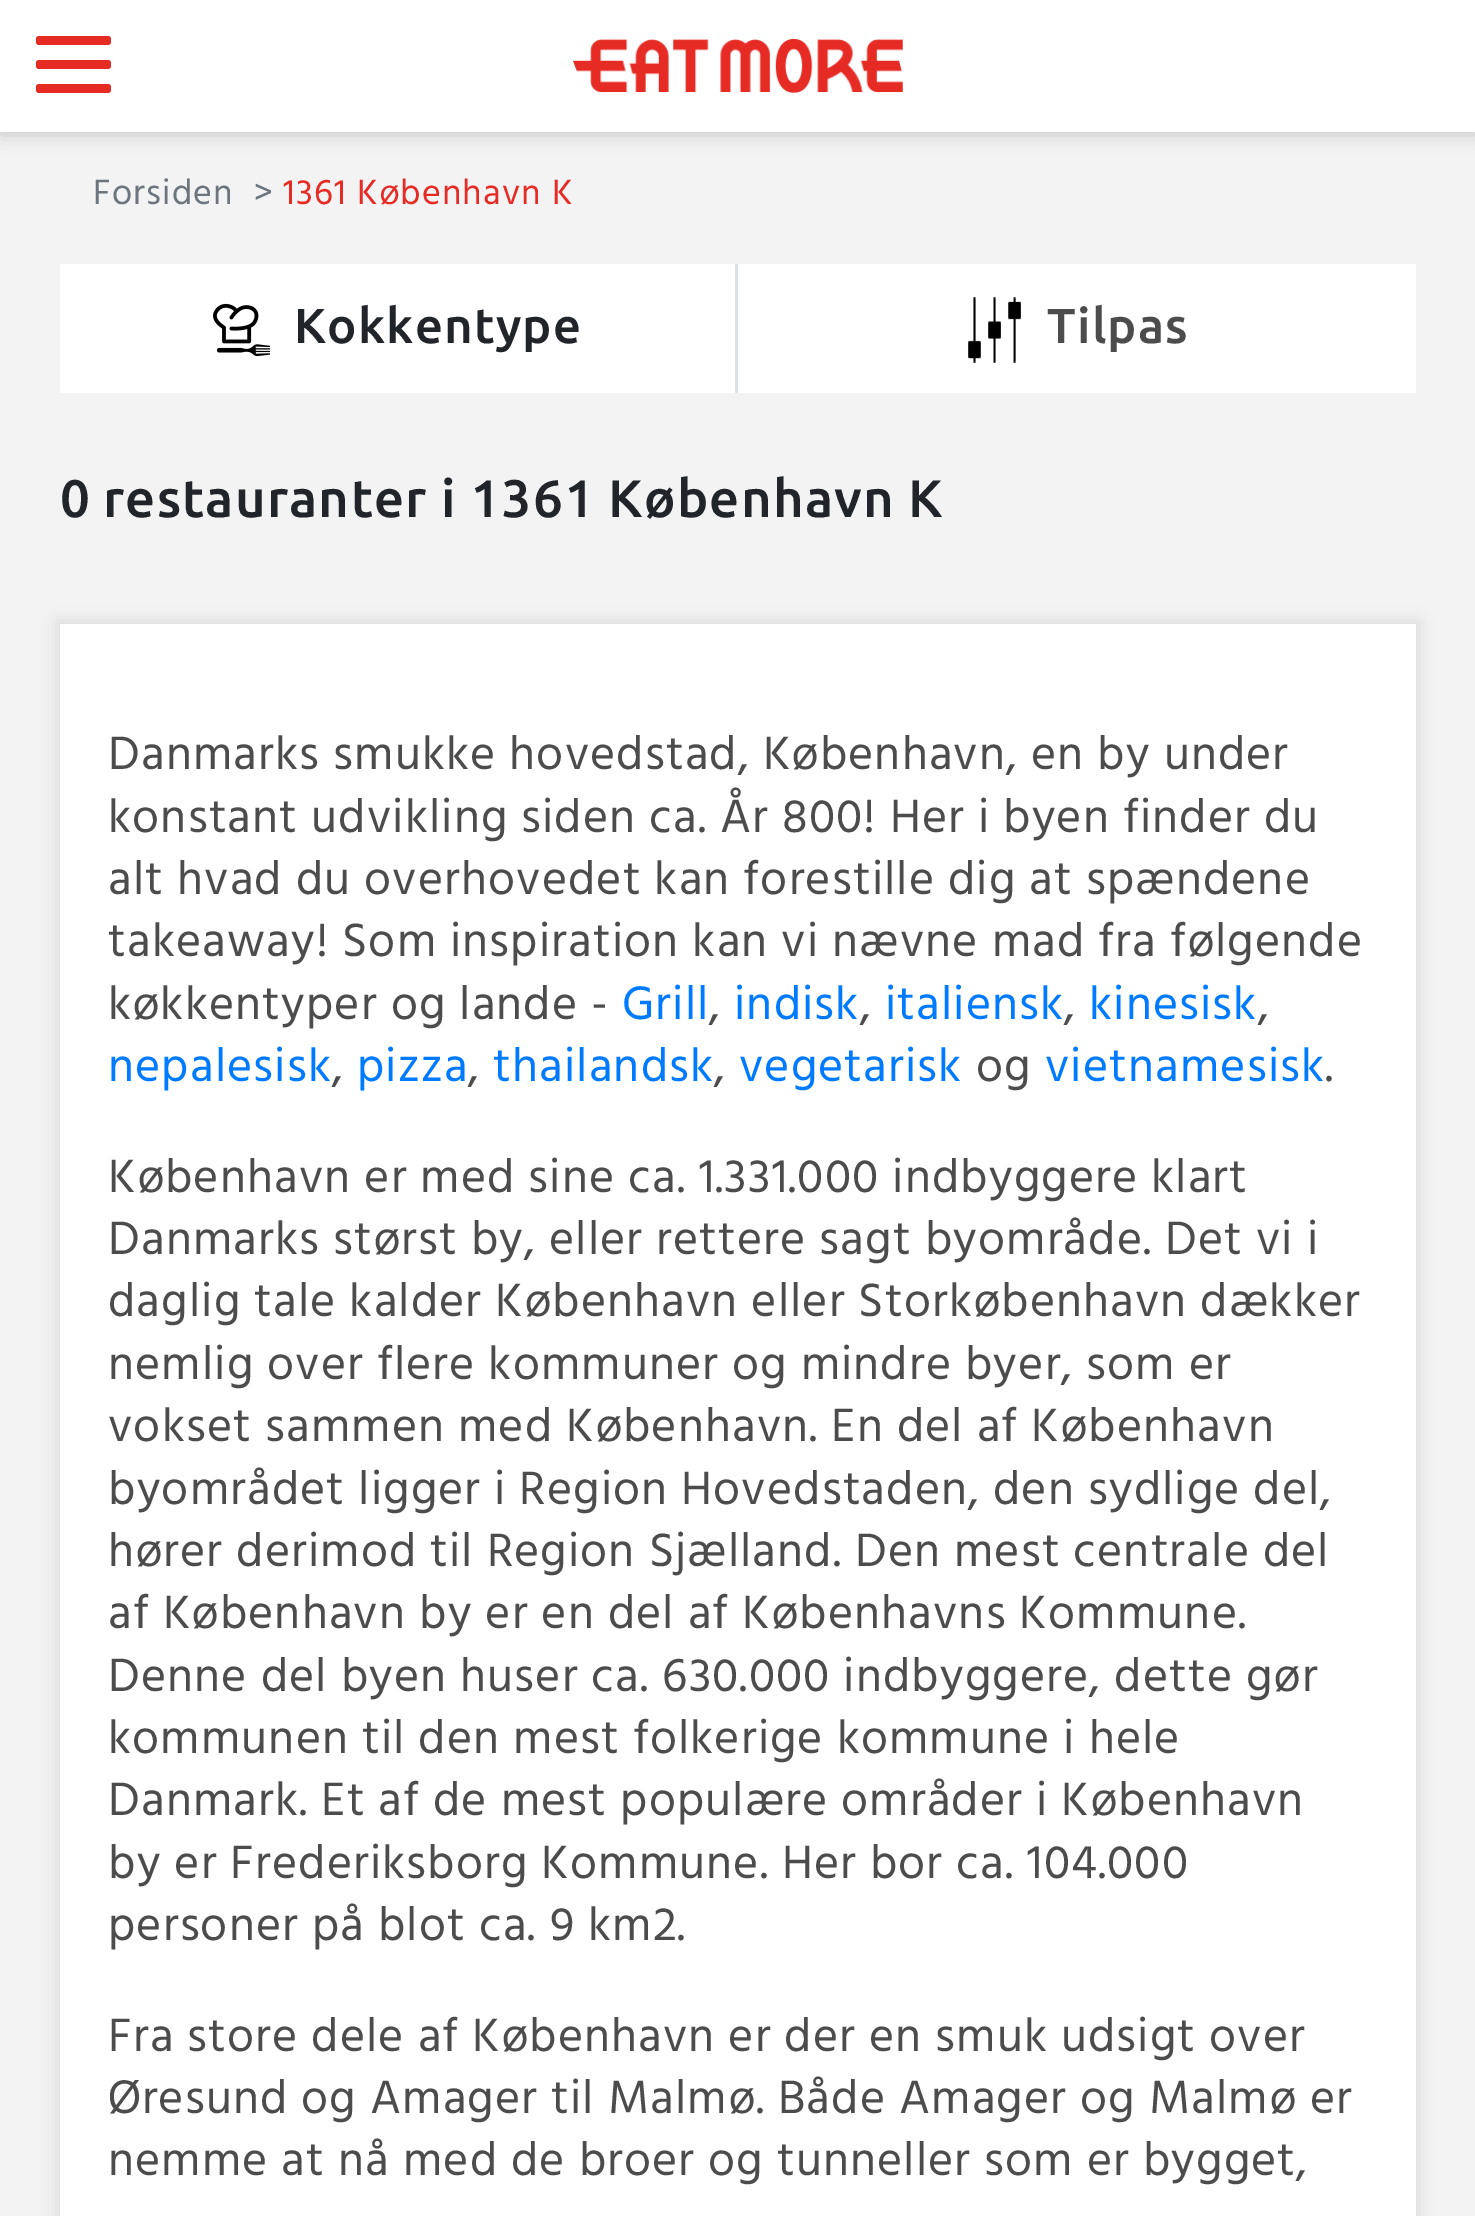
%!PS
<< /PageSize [1475 2216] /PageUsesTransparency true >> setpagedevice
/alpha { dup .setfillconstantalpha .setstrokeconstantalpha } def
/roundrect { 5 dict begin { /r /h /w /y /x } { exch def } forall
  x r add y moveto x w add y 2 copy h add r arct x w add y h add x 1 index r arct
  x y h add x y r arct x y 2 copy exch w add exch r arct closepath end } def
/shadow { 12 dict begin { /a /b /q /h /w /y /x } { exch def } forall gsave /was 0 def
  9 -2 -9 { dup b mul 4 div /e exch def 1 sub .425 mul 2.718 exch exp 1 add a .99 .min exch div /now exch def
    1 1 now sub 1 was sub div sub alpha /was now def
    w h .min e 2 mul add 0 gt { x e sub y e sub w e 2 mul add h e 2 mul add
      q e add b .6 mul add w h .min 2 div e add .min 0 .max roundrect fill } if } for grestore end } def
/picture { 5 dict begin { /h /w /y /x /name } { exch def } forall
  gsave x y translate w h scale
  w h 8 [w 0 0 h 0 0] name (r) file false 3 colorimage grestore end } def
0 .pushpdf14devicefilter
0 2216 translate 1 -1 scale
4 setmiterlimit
0.953 setgray
0 0 1475 2216 rectfill
0.78 setgray
0 3 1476 132 0 9 1 shadow
1 setgray
0 0 1475 132 rectfill
0.902 0.169 0.145 setrgbcolor
36 36 75 9 3 roundrect fill
36 60 75 9 3 roundrect fill
36 84 75 9 3 roundrect fill
(img1.rgb) 573 39 330 54 picture
/HindVadodara-Regular [36 0 0 -36 0 0] selectfont
0.424 0.459 0.49 setrgbcolor
93 204 moveto 1.2 0 (Forsiden) ashow
254 204 moveto 1.2 0 (>) ashow
0.902 0.169 0.145 setrgbcolor
283 204 moveto 1.2 0 (1361 København K) ashow
1 setgray
60 264 675 129 rectfill
0.871 0.886 0.902 setrgbcolor
735 264 3 129 rectfill
(img2.rgb) 213 303 57 54 picture
/Ubuntu-Medium [49.25 0 0 -49.25 0 0] selectfont
0.129 0.145 0.161 setrgbcolor
294 343 moveto 1.2 0 (Kokkentype) ashow
1 setgray
738 264 678 129 rectfill
(img3.rgb) 968 297 53 66 picture
0.298 setgray
1047 343 moveto 1.2 0 (Tilpas) ashow
/Ubuntu-Medium [52.75 0 0 -52.75 0 0] selectfont
0.129 0.145 0.161 setrgbcolor
60 517 moveto 1.2 0 (0) ashow
103 517 moveto 1.2 0 (restauranter i 1361 København K) ashow
0.847 setgray
57 621 1362 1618 0 7.5 1 shadow
1 setgray
60 624 1356 1592 rectfill
/HindVadodara-Regular [48 0 0 -48 0 0] selectfont
0.298 setgray
108 769 moveto 1.2 0 (Danmarks smukke hovedstad, København, en by under) ashow
108 832 moveto 1.2 0 (konstant udvikling siden ca. År 800! Her i byen finder du) ashow
108 894 moveto 1.2 0 (alt hvad du overhovedet kan forestille dig at spændene) ashow
108 956 moveto 1.2 0 (takeaway! Som inspiration kan vi nævne mad fra følgende) ashow
108 1019 moveto 1.2 0 (køkkentyper og lande -) ashow
0 0.482 1 setrgbcolor
622 1019 moveto 1.2 0 (Grill) ashow
0.298 setgray
709 1019 moveto 1.2 0 (,) ashow
0 0.482 1 setrgbcolor
734 1019 moveto 1.2 0 (indisk) ashow
0.298 setgray
860 1019 moveto 1.2 0 (,) ashow
0 0.482 1 setrgbcolor
885 1019 moveto 1.2 0 (italiensk) ashow
0.298 setgray
1064 1019 moveto 1.2 0 (,) ashow
0 0.482 1 setrgbcolor
1089 1019 moveto 1.2 0 (kinesisk) ashow
0.298 setgray
1258 1019 moveto 1.2 0 (,) ashow
0 0.482 1 setrgbcolor
108 1081 moveto 1.2 0 (nepalesisk) ashow
0.298 setgray
332 1081 moveto 1.2 0 (,) ashow
0 0.482 1 setrgbcolor
357 1081 moveto 1.2 0 (pizza) ashow
0.298 setgray
468 1081 moveto 1.2 0 (,) ashow
0 0.482 1 setrgbcolor
493 1081 moveto 1.2 0 (thailandsk) ashow
0.298 setgray
714 1081 moveto 1.2 0 (,) ashow
0 0.482 1 setrgbcolor
739 1081 moveto 1.2 0 (vegetarisk) ashow
0.298 setgray
976 1081 moveto 1.2 0 (og) ashow
0 0.482 1 setrgbcolor
1045 1081 moveto 1.2 0 (vietnamesisk) ashow
0.298 setgray
1325 1081 moveto 1.2 0 (.) ashow
108 1192 moveto 1.2 0 (København er med sine ca. 1.331.000 indbyggere klart) ashow
108 1254 moveto 1.2 0 (Danmarks størst by, eller rettere sagt byområde. Det vi i) ashow
108 1316 moveto 1.2 0 (daglig tale kalder København eller Storkøbenhavn dækker) ashow
108 1379 moveto 1.2 0 (nemlig over flere kommuner og mindre byer, som er) ashow
108 1441 moveto 1.2 0 (vokset sammen med København. En del af København) ashow
108 1504 moveto 1.2 0 (byområdet ligger i Region Hovedstaden, den sydlige del,) ashow
108 1566 moveto 1.2 0 (hører derimod til Region Sjælland. Den mest centrale del) ashow
108 1628 moveto 1.2 0 (af København by er en del af Københavns Kommune.) ashow
108 1691 moveto 1.2 0 (Denne del byen huser ca. 630.000 indbyggere, dette gør) ashow
108 1753 moveto 1.2 0 (kommunen til den mest folkerige kommune i hele) ashow
108 1815 moveto 1.2 0 (Danmark. Et af de mest populære områder i København) ashow
108 1878 moveto 1.2 0 (by er Frederiksborg Kommune. Her bor ca. 104.000) ashow
108 1940 moveto 1.2 0 (personer på blot ca. 9 km2.) ashow
108 2051 moveto 1.2 0 (Fra store dele af København er der en smuk udsigt over) ashow
108 2113 moveto 1.2 0 (Øresund og Amager til Malmø. Både Amager og Malmø er) ashow
108 2175 moveto 1.2 0 (nemme at nå med de broer og tunneller som er bygget,) ashow
.poppdf14devicefilter showpage
